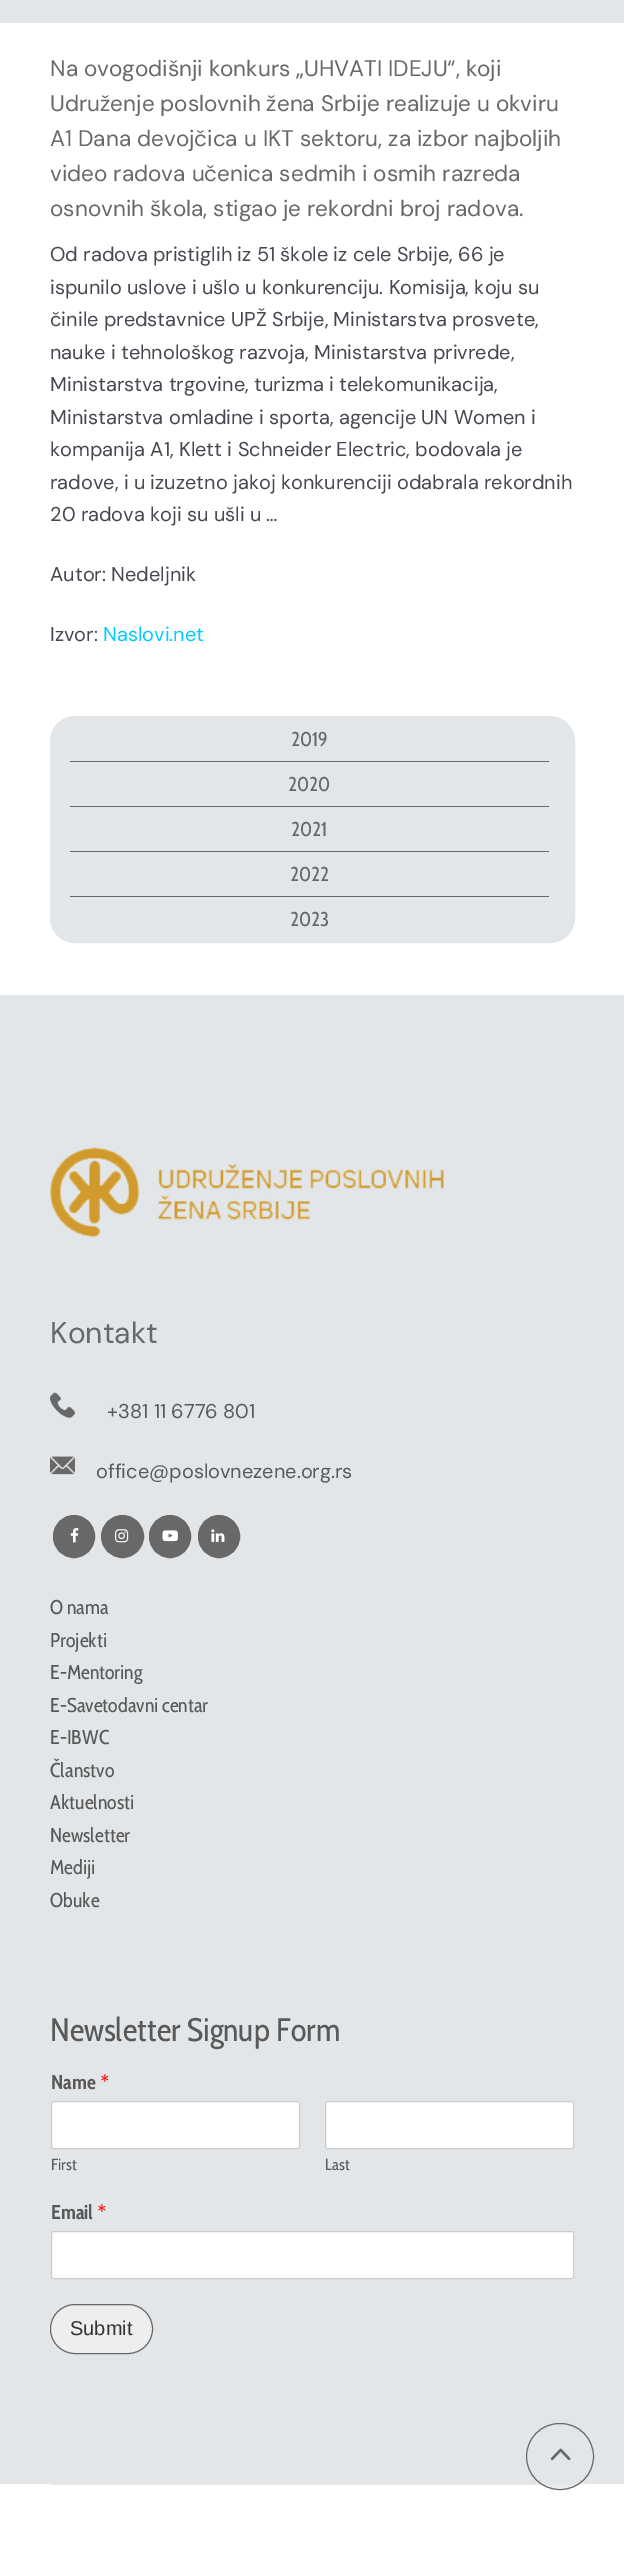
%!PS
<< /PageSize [624 2571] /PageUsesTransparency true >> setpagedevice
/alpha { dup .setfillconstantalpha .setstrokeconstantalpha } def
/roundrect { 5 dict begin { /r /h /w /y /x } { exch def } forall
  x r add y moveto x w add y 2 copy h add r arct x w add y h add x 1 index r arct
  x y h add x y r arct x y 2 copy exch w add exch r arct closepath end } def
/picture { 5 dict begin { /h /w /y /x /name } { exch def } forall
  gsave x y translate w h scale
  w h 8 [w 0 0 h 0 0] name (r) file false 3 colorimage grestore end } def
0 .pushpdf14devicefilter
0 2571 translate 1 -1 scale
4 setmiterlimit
1 setgray
0 0 624 2571 rectfill
0.89 0.902 0.91 setrgbcolor
0 0 624 23 rectfill
/DMSans-Regular [22.5 0 0 -22.5 0 0] selectfont
0.408 0.408 0.412 setrgbcolor
50 76 moveto (Na ovogodišnji konkurs „UHVATI IDEJU“, koji) show
50 111 moveto (Udruženje poslovnih žena Srbije realizuje u okviru) show
50 146 moveto (A1 Dana devojčica u IKT sektoru, za izbor najboljih) show
50 181 moveto (video radova učenica sedmih i osmih razreda) show
50 216 moveto (osnovnih škola, stigao je rekordni broj radova.) show
/DMSans-Regular [20 0 0 -20 0 0] selectfont
0.278 0.278 0.318 setrgbcolor
50 261 moveto (Od radova pristiglih iz 51 škole iz cele Srbije, 66 je) show
50 294 moveto (ispunilo uslove i ušlo u konkurenciju. Komisija, koju su) show
50 326 moveto (činile predstavnice UPŽ Srbije, Ministarstva prosvete,) show
50 359 moveto (nauke i tehnološkog razvoja, Ministarstva privrede,) show
50 391 moveto (Ministarstva trgovine, turizma i telekomunikacija,) show
50 424 moveto (Ministarstva omladine i sporta, agencije UN Women i) show
50 456 moveto (kompanija A1, Klett i Schneider Electric, bodovala je) show
50 489 moveto (radove, i u izuzetno jakoj konkurenciji odabrala rekordnih) show
50 521 moveto (20 radova koji su ušli u …) show
50 581 moveto (Autor: Nedeljnik) show
50 641 moveto (Izvor:) show
0 0.8 1 setrgbcolor
103 641 moveto (Naslovi.net) show
0.89 0.902 0.91 setrgbcolor
50.5 716.5 524 226 24.5 roundrect gsave fill grestore
stroke
0.408 0.408 0.412 setrgbcolor
70 761 479 1 rectfill
/CabinCondensed-Regular [20 0 0 -20 0 0] selectfont
291 746 moveto (2019) show
70 806 479 1 rectfill
288 791 moveto (2020) show
70 851 479 1 rectfill
291 836 moveto (2021) show
70 896 479 1 rectfill
290 881 moveto (2022) show
290 926 moveto (2023) show
0.89 0.902 0.91 setrgbcolor
0 995 624 1489 rectfill
(img1.rgb) 50 1147 394 90 picture
/DMSans-Regular [30 0 0 -30 0 0] selectfont
0.408 0.408 0.412 setrgbcolor
50 1343 moveto (Kontakt) show
(img2.rgb) 50 1392 25 26 picture
/DMSans-Regular [20 0 0 -20 0 0] selectfont
0.349 setgray
107 1418 moveto (+381 11 6776 801) show
(img3.rgb) 50 1456 25 19 picture
96 1478 moveto (office@poslovnezene.org.rs) show
0.408 0.408 0.412 setrgbcolor
53.5 1515.5 41 42 20.5 roundrect gsave fill grestore
stroke
(img4.rgb) 70 1528 9 15 picture
newpath 122.5 1536.5 21 0 360 arc closepath gsave fill grestore
stroke
(img5.rgb) 115 1529 14 14 picture
149.5 1515.5 41 42 20.5 roundrect gsave fill grestore
stroke
(img6.rgb) 162 1530 16 12 picture
198.5 1515.5 41 42 20.5 roundrect gsave fill grestore
stroke
(img7.rgb) 211 1529 14 13 picture
/CabinCondensed-Regular [20 0 0 -20 0 0] selectfont
0.349 setgray
50 1614 moveto (O nama) show
50 1647 moveto (Projekti) show
50 1679 moveto (E-Mentoring) show
50 1712 moveto (E-Savetodavni centar) show
50 1744 moveto (E-IBWC) show
50 1777 moveto (Članstvo) show
50 1809 moveto (Aktuelnosti) show
50 1842 moveto (Newsletter) show
50 1874 moveto (Mediji) show
50 1907 moveto (Obuke) show
/CabinCondensed-Regular [32.5 0 0 -32.5 0 0] selectfont
50 2041 moveto (Newsletter Signup Form) show
/CabinCondensed-Bold [20 0 0 -20 0 0] selectfont
51 2089 moveto (Name) show
/DMSans-Regular [20 0 0 -20 0 0] selectfont
1 0 0 setrgbcolor
100 2089 moveto (*) show
1 setgray
51.5 2101.5 248 47 2 roundrect gsave fill grestore
0.8 setgray
stroke
/CabinCondensed-Regular [16 0 0 -16 0 0] selectfont
0.349 setgray
51 2170 moveto (First) show
1 setgray
325.5 2101.5 248 47 2 roundrect gsave fill grestore
0.8 setgray
stroke
0.349 setgray
325 2170 moveto (Last) show
/CabinCondensed-Bold [20 0 0 -20 0 0] selectfont
51 2219 moveto (Email) show
/DMSans-Regular [20 0 0 -20 0 0] selectfont
1 0 0 setrgbcolor
97 2219 moveto (*) show
1 setgray
51.5 2231.5 522 47 2 roundrect gsave fill grestore
0.8 setgray
stroke
0.933 setgray
50.5 2304.5 102 49 24.5 roundrect gsave fill grestore
0.408 0.408 0.412 setrgbcolor
stroke
/LiberationSans-Regular [20 0 0 -20 0 0] selectfont
0.2 setgray
70 2335 moveto (Submit) show
0.918 setgray
50 2484 525 1 rectfill
0.8 alpha
0.89 0.902 0.91 setrgbcolor
526.5 2423.5 67 66 33 roundrect fill
1 alpha
0.408 0.408 0.412 setrgbcolor
526.5 2423.5 67 66 33 roundrect stroke
(img8.rgb) 550 2448 21 13 picture
.poppdf14devicefilter showpage
